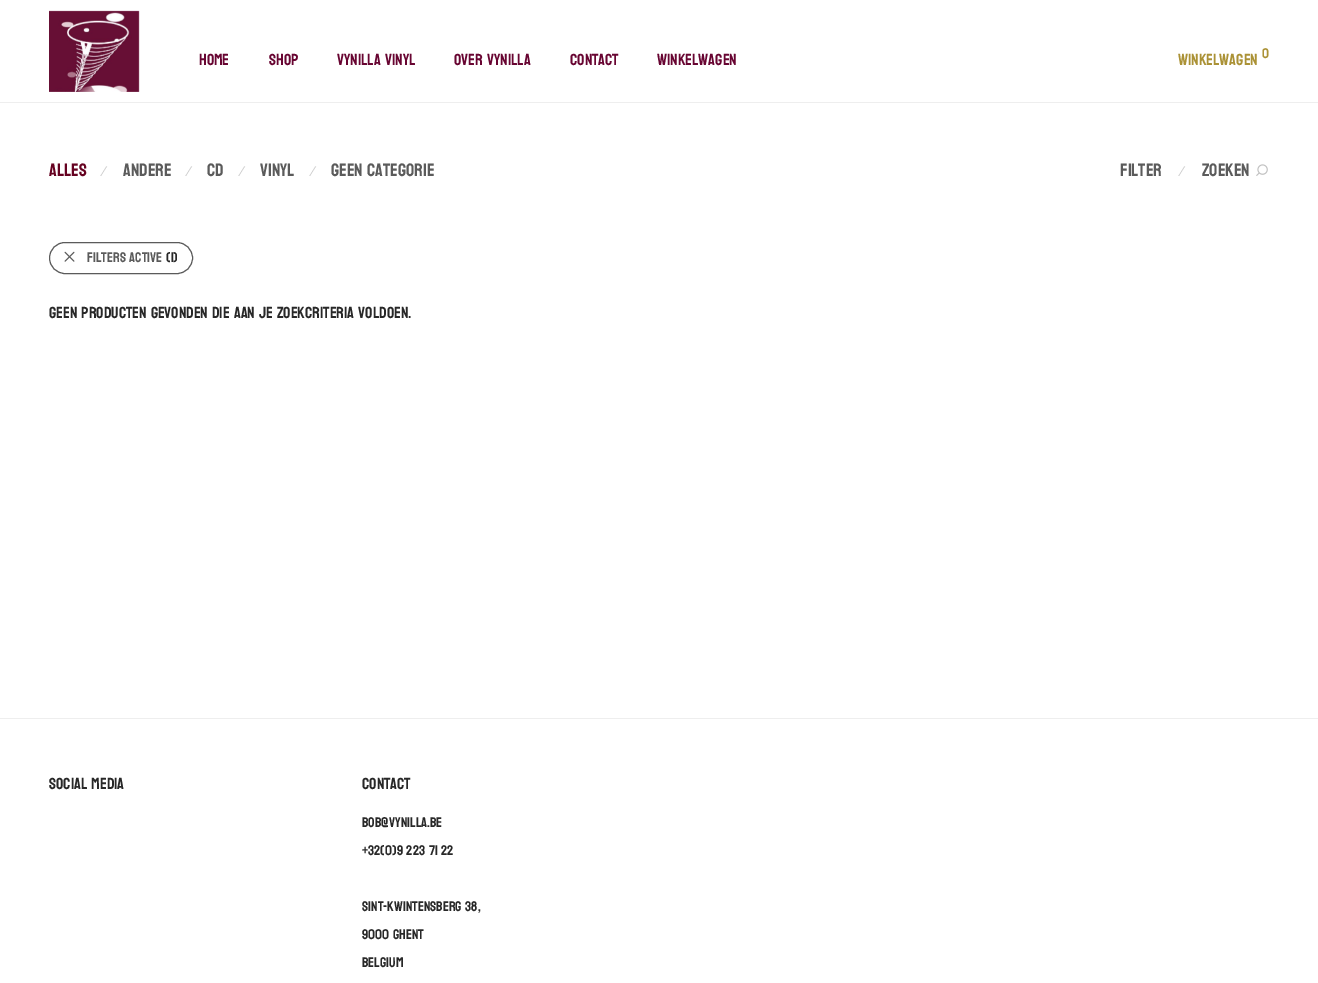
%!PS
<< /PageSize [1318 983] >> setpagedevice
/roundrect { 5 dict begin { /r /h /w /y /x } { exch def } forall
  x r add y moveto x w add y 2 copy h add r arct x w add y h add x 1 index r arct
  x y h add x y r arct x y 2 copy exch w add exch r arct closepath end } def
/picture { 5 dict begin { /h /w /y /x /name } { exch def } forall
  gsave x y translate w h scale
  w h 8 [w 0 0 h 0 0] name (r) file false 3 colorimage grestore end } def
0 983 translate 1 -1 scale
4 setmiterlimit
1 setgray
0 0 1318 983 rectfill
0.933 setgray
0 102 1318 1 rectfill
(img1.rgb) 49 10 91 82 picture
/Koulen-Regular [16 0 0 -16 0 0] selectfont
0.408 0.02 0.196 setrgbcolor
199 65 moveto (Home) show
269 65 moveto (Shop) show
337 65 moveto (Vynilla Vinyl) show
454 65 moveto (Over Vynilla) show
570 65 moveto (Contact) show
657 65 moveto (Winkelwagen) show
0.671 0.573 0.212 setrgbcolor
1178 65 moveto (Winkelwagen) show
/Koulen-Regular [14 0 0 -14 0 0] selectfont
1262 58 moveto (0) show
/Koulen-Regular [18 0 0 -18 0 0] selectfont
0.4 0.008 0.129 setrgbcolor
49 176 moveto (Alles) show
/LiberationSans-Regular [14 0 0 -14 0 0] selectfont
0.8 setgray
103 176 moveto (⁄) show
/Koulen-Regular [18 0 0 -18 0 0] selectfont
0.357 setgray
123 176 moveto (Andere) show
/LiberationSans-Regular [14 0 0 -14 0 0] selectfont
0.8 setgray
188 176 moveto (⁄) show
/Koulen-Regular [18 0 0 -18 0 0] selectfont
0.357 setgray
207 176 moveto (CD) show
/LiberationSans-Regular [14 0 0 -14 0 0] selectfont
0.8 setgray
241 176 moveto (⁄) show
/Koulen-Regular [18 0 0 -18 0 0] selectfont
0.357 setgray
260 176 moveto (Vinyl) show
/LiberationSans-Regular [14 0 0 -14 0 0] selectfont
0.8 setgray
312 176 moveto (⁄) show
/Koulen-Regular [18 0 0 -18 0 0] selectfont
0.357 setgray
331 176 moveto (Geen categorie) show
1120 176 moveto (Filter) show
/LiberationSans-Regular [14 0 0 -14 0 0] selectfont
0.8 setgray
1181 176 moveto (⁄) show
/Koulen-Regular [18 0 0 -18 0 0] selectfont
0.357 setgray
1202 176 moveto (Zoeken) show
(img2.rgb) 1256 164 12 12 picture
49.5 242.5 143 31 15.5 roundrect stroke
(img3.rgb) 64 251 11 11 picture
/Koulen-Regular [14 0 0 -14 0 0] selectfont
87 262 moveto (Filters active) show
0.157 setgray
166 262 moveto (\(1\)) show
/Koulen-Regular [16 0 0 -16 0 0] selectfont
49 318 moveto (Geen producten gevonden die aan je zoekcriteria voldoen.) show
0.933 setgray
0 718 1318 1 rectfill
0.157 setgray
49 789 moveto (Social Media) show
362 789 moveto (Contact) show
/Koulen-Regular [14 0 0 -14 0 0] selectfont
362 827 moveto (bob@vynilla.be) show
362 855 moveto (+32\(0\)9 223 71 22) show
362 911 moveto (Sint-Kwintensberg 38,) show
362 939 moveto (9000 Ghent) show
362 967 moveto (Belgium) show
showpage
